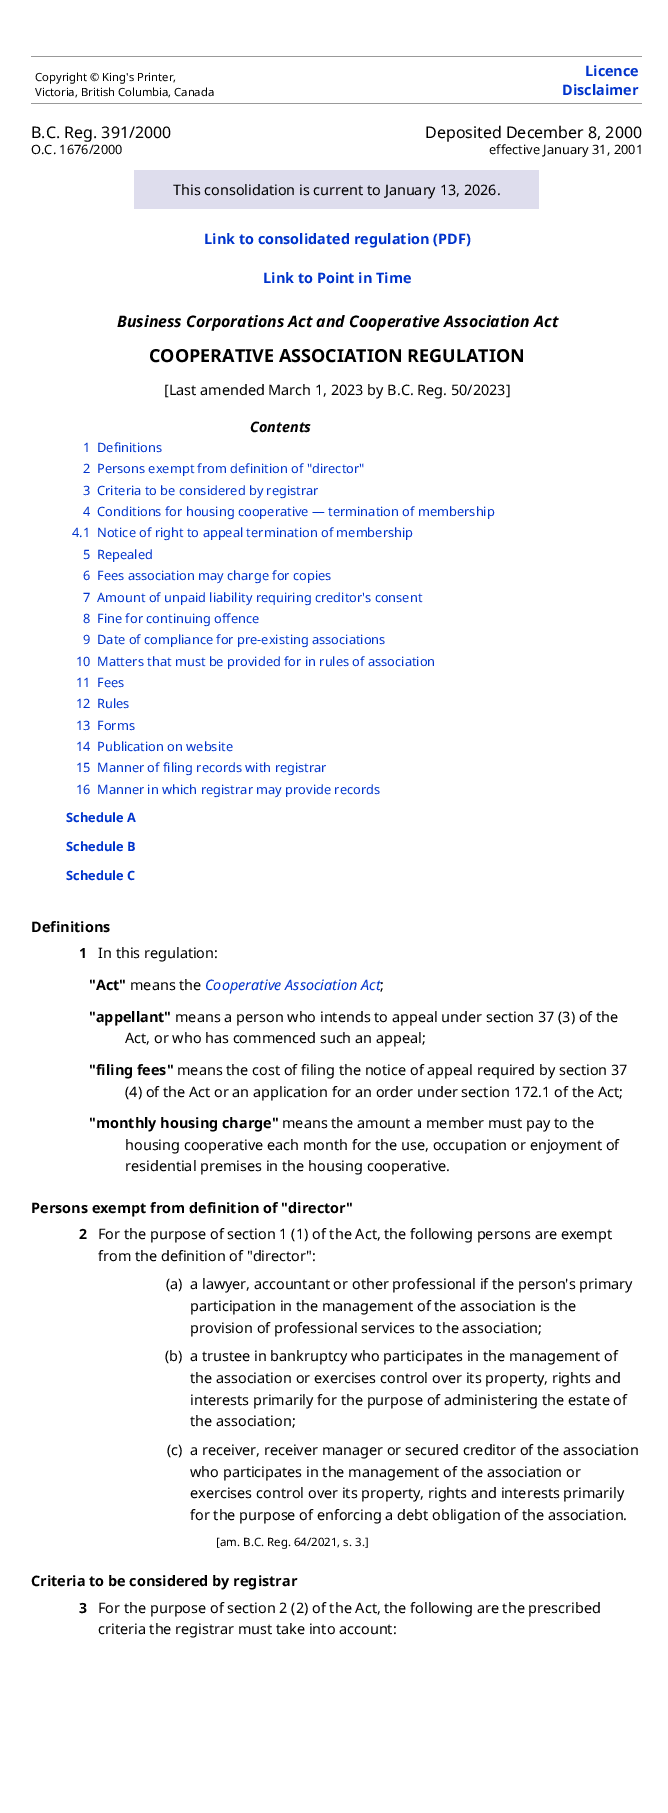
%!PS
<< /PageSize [668 1813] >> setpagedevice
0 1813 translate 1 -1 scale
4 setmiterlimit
1 setgray
0 0 668 1813 rectfill
0.6 setgray
31 56 611 1 rectfill
31 103 611 1 rectfill
/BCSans-Regular [11.25 0 0 -11.25 0 0] selectfont
0 setgray
35 81 moveto (Copyright © King's Printer,) show
35 96 moveto (Victoria, British Columbia, Canada) show
/BCSans-Bold [14.4 0 0 -14.4 0 0] selectfont
0 0.2 0.8 setrgbcolor
585 76 moveto (Licence) show
562 95 moveto (Disclaimer) show
/BCSans-Regular [16 0 0 -16 0 0] selectfont
0 setgray
31 138 moveto (B.C. Reg. 391/2000) show
/BCSans-Regular [12.8 0 0 -12.8 0 0] selectfont
31 154 moveto (O.C. 1676/2000) show
/BCSans-Regular [16 0 0 -16 0 0] selectfont
425 138 moveto (Deposited December 8, 2000) show
/BCSans-Regular [12.8 0 0 -12.8 0 0] selectfont
489 154 moveto (effective January 31, 2001) show
0.871 0.867 0.929 setrgbcolor
134 170 405 39 rectfill
/BCSans-Regular [14.4 0 0 -14.4 0 0] selectfont
0 setgray
173 195 moveto (This consolidation is current to January 13, 2026.) show
/BCSans-Bold [14.4 0 0 -14.4 0 0] selectfont
0 0.2 0.8 setrgbcolor
204 244 moveto (Link to consolidated regulation \(PDF\)) show
263 283 moveto (Link to Point in Time) show
/BCSans-BoldItalic [15.85 0 0 -15.85 0 0] selectfont
0 setgray
117 327 moveto (Business Corporations Act and Cooperative Association Act) show
/BCSans-Bold [18 0 0 -18 0 0] selectfont
149 362 moveto (COOPERATIVE ASSOCIATION REGULATION) show
/BCSans-Regular [14.4 0 0 -14.4 0 0] selectfont
164 395 moveto ([Last amended March 1, 2023 by B.C. Reg. 50/2023]) show
/BCSans-BoldItalic [14.4 0 0 -14.4 0 0] selectfont
250 432 moveto (Contents) show
/BCSans-Regular [12.8 0 0 -12.8 0 0] selectfont
0 0.2 0.8 setrgbcolor
83 452 moveto (1) show
97 452 moveto (Definitions) show
83 473 moveto (2) show
97 473 moveto (Persons exempt from definition of "director") show
83 495 moveto (3) show
97 495 moveto (Criteria to be considered by registrar) show
83 516 moveto (4) show
97 516 moveto (Conditions for housing cooperative — termination of membership) show
72 537 moveto (4.1) show
97 537 moveto (Notice of right to appeal termination of membership) show
83 559 moveto (5) show
97 559 moveto (Repealed) show
83 580 moveto (6) show
97 580 moveto (Fees association may charge for copies) show
83 602 moveto (7) show
97 602 moveto (Amount of unpaid liability requiring creditor's consent) show
83 623 moveto (8) show
97 623 moveto (Fine for continuing offence) show
83 644 moveto (9) show
97 644 moveto (Date of compliance for pre-existing associations) show
76 666 moveto (10) show
97 666 moveto (Matters that must be provided for in rules of association) show
76 687 moveto (11) show
97 687 moveto (Fees) show
76 708 moveto (12) show
97 708 moveto (Rules) show
76 730 moveto (13) show
97 730 moveto (Forms) show
76 751 moveto (14) show
97 751 moveto (Publication on website) show
76 772 moveto (15) show
97 772 moveto (Manner of filing records with registrar) show
76 794 moveto (16) show
97 794 moveto (Manner in which registrar may provide records) show
/BCSans-Bold [12.8 0 0 -12.8 0 0] selectfont
66 822 moveto (Schedule A) show
66 851 moveto (Schedule B) show
66 880 moveto (Schedule C) show
/BCSans-Bold [14.4 0 0 -14.4 0 0] selectfont
0 setgray
31 932 moveto (Definitions) show
/BCSans-Bold [14 0 0 -14 0 0] selectfont
79 958 moveto (1) show
/BCSans-Regular [14.4 0 0 -14.4 0 0] selectfont
98 958 moveto (In this regulation:) show
/BCSans-Bold [14.4 0 0 -14.4 0 0] selectfont
89 990 moveto ("Act") show
/BCSans-Regular [14.4 0 0 -14.4 0 0] selectfont
130 990 moveto (means the) show
/BCSans-Italic [14.4 0 0 -14.4 0 0] selectfont
0 0.2 0.8 setrgbcolor
205 990 moveto (Cooperative Association Act) show
/BCSans-Regular [14.4 0 0 -14.4 0 0] selectfont
0 setgray
380 990 moveto (;) show
/BCSans-Bold [14.4 0 0 -14.4 0 0] selectfont
89 1022 moveto ("appellant") show
/BCSans-Regular [14.4 0 0 -14.4 0 0] selectfont
175 1022 moveto (means a person who intends to appeal under section 37 \(3\) of the) show
125 1043 moveto (Act, or who has commenced such an appeal;) show
/BCSans-Bold [14.4 0 0 -14.4 0 0] selectfont
89 1075 moveto ("filing fees") show
/BCSans-Regular [14.4 0 0 -14.4 0 0] selectfont
177 1075 moveto (means the cost of filing the notice of appeal required by section 37) show
125 1097 moveto (\(4\) of the Act or an application for an order under section 172.1 of the Act;) show
/BCSans-Bold [14.4 0 0 -14.4 0 0] selectfont
89 1128 moveto ("monthly housing charge") show
/BCSans-Regular [14.4 0 0 -14.4 0 0] selectfont
282 1128 moveto (means the amount a member must pay to the) show
125 1150 moveto (housing cooperative each month for the use, occupation or enjoyment of) show
125 1171 moveto (residential premises in the housing cooperative.) show
/BCSans-Bold [14.4 0 0 -14.4 0 0] selectfont
31 1213 moveto (Persons exempt from definition of "director") show
/BCSans-Bold [14 0 0 -14 0 0] selectfont
79 1239 moveto (2) show
/BCSans-Regular [14.4 0 0 -14.4 0 0] selectfont
98 1239 moveto (For the purpose of section 1 \(1\) of the Act, the following persons are exempt) show
98 1261 moveto (from the definition of "director":) show
166 1289 moveto (\(a\)) show
190 1289 moveto (a lawyer, accountant or other professional if the person's primary) show
190 1311 moveto (participation in the management of the association is the) show
190 1333 moveto (provision of professional services to the association;) show
165 1361 moveto (\(b\)) show
190 1361 moveto (a trustee in bankruptcy who participates in the management of) show
190 1383 moveto (the association or exercises control over its property, rights and) show
190 1405 moveto (interests primarily for the purpose of administering the estate of) show
190 1426 moveto (the association;) show
167 1455 moveto (\(c\)) show
190 1455 moveto (a receiver, receiver manager or secured creditor of the association) show
190 1477 moveto (who participates in the management of the association or) show
190 1498 moveto (exercises control over its property, rights and interests primarily) show
190 1520 moveto (for the purpose of enforcing a debt obligation of the association.) show
/BCSans-Regular [11.5 0 0 -11.5 0 0] selectfont
216 1546 moveto ([am. B.C. Reg. 64/2021, s. 3.]) show
/BCSans-Bold [14.4 0 0 -14.4 0 0] selectfont
31 1586 moveto (Criteria to be considered by registrar) show
/BCSans-Bold [14 0 0 -14 0 0] selectfont
79 1613 moveto (3) show
/BCSans-Regular [14.4 0 0 -14.4 0 0] selectfont
98 1613 moveto (For the purpose of section 2 \(2\) of the Act, the following are the prescribed) show
98 1634 moveto (criteria the registrar must take into account:) show
showpage
